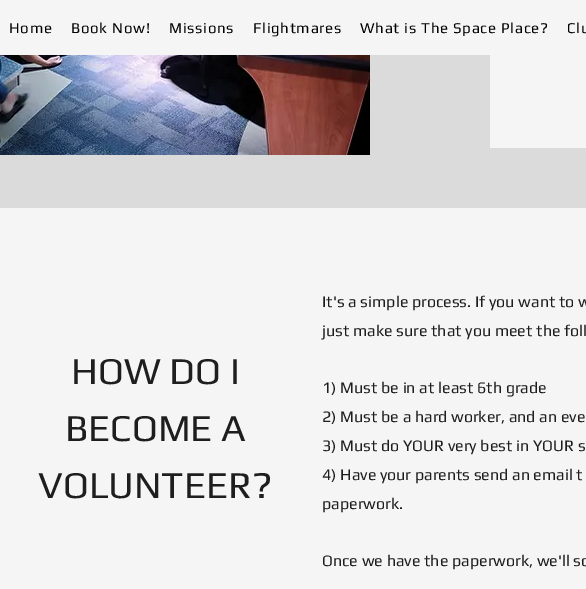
%!PS
<< /PageSize [586 589] >> setpagedevice
/picture { 5 dict begin { /h /w /y /x /name } { exch def } forall
  gsave x y translate w h scale
  w h 8 [w 0 0 h 0 0] name (r) file false 3 colorimage grestore end } def
0 589 translate 1 -1 scale
4 setmiterlimit
0.859 setgray
0 0 586 589 rectfill
0.961 setgray
0 0 586 55 rectfill
/Play-Regular [15 0 0 -15 0 0] selectfont
0 setgray
9 33 moveto 0.75 0 (Home) ashow
71 33 moveto 0.75 0 (Book Now!) ashow
169 33 moveto 0.75 0 (Missions) ashow
253 33 moveto 0.75 0 (Flightmares) ashow
360 33 moveto 0.75 0 (What is The Space Place?) ashow
567 33 moveto 0.75 0 (Clu) ashow
(img1.rgb) 0 55 370 100 picture
0.961 setgray
490 55 96 93 rectfill
0 208 586 381 rectfill
/Play-Regular [38 0 0 -38 0 0] selectfont
0.118 setgray
71 384 moveto (HOW DO I) show
65 441 moveto (BECOME A) show
38 498 moveto (VOLUNTEER?) show
/Play-Regular [16 0 0 -16 0 0] selectfont
322 307 moveto (It's a simple process. If you want to w) show
322 336 moveto (just make sure that you meet the foll) show
322 393 moveto (1\) Must be in at least 6th grade) show
322 422 moveto (2\) Must be a hard worker, and an eve) show
322 451 moveto (3\) Must do YOUR very best in YOUR s) show
322 480 moveto (4\) Have your parents send an email t) show
322 509 moveto (paperwork.) show
322 566 moveto (Once we have the paperwork, we'll sc) show
showpage
